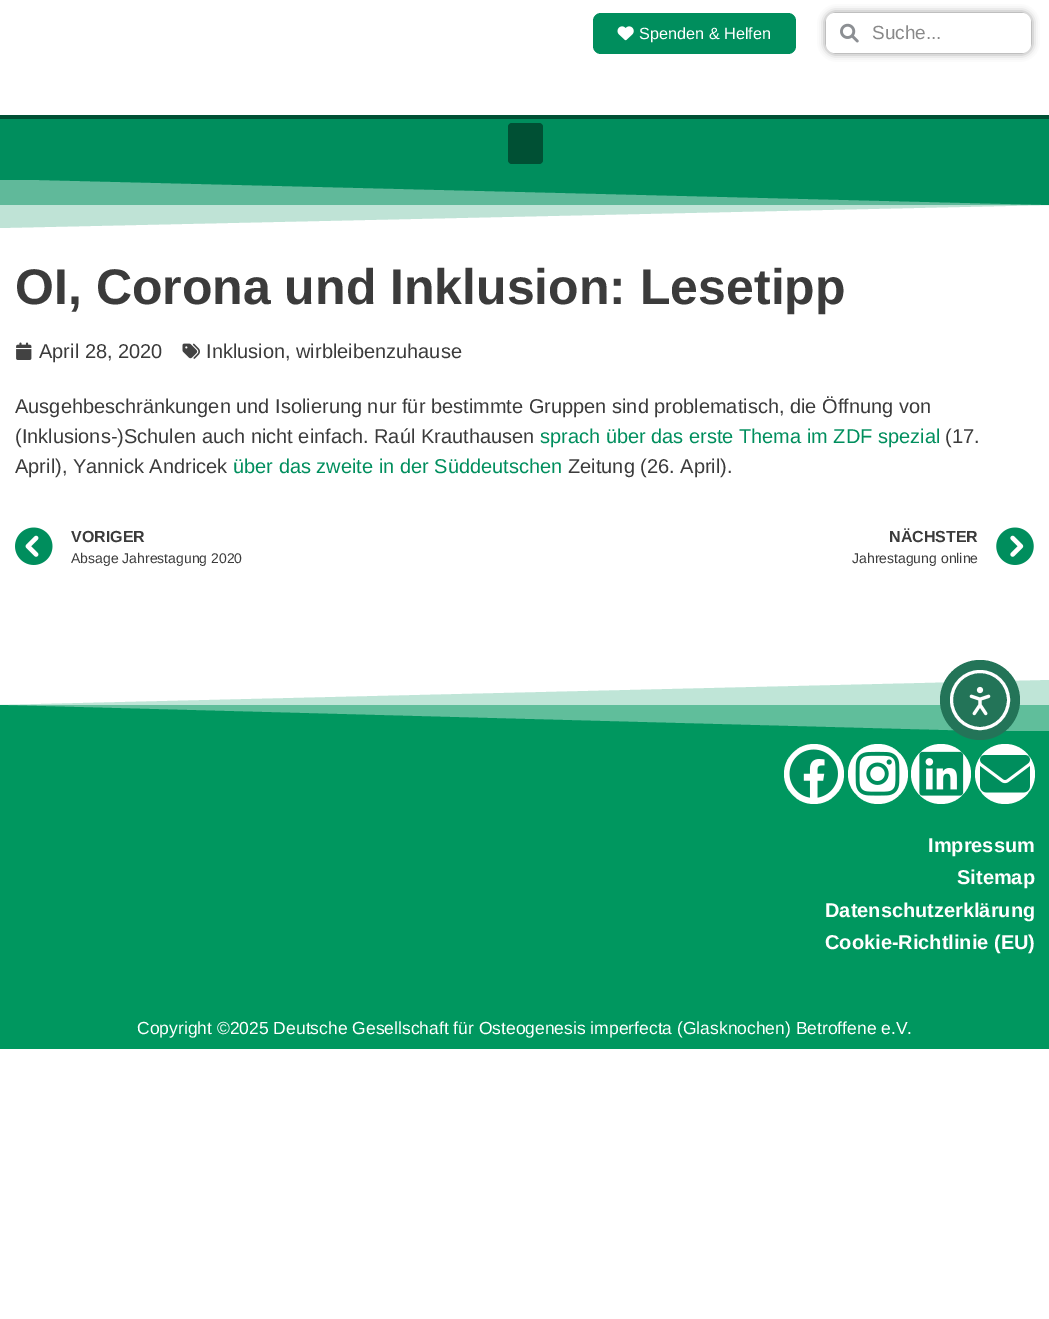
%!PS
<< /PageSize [1049 1319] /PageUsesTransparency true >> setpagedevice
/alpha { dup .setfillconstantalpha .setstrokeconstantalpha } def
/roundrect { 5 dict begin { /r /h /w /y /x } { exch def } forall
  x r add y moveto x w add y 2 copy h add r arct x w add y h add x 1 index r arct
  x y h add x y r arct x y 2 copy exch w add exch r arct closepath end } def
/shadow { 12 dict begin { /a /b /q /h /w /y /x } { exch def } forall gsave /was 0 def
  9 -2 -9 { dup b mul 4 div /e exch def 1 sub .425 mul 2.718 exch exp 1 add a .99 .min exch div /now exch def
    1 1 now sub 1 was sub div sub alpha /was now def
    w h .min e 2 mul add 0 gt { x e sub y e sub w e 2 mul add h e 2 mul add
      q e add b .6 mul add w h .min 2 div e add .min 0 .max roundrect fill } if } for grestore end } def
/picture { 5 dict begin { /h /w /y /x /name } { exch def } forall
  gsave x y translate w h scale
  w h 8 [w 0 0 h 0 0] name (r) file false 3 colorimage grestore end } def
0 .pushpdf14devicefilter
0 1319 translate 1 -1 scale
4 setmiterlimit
1 setgray
0 0 1049 1319 rectfill
0.502 0.796 0.686 setrgbcolor
1 705 1048 26 rectfill
0.502 0.78 0.682 setrgbcolor
0 180 1049 25 rectfill
0 0.557 0.365 setrgbcolor
593 13 203 41 8 roundrect fill
(img1.rgb) 617 26 17 15 picture
/LiberationSans-Regular [16.25 0 0 -16.25 0 0] selectfont
1 setgray
639 39 moveto (Spenden & Helfen) show
0 setgray
826 13 205 40 9 4 0.5 shadow
1 setgray
826 13 205 40 9 roundrect fill
(img2.rgb) 840 23 19 20 picture
/LiberationSans-Regular [19 0 0 -19 0 0] selectfont
0.537 setgray
872 39 moveto (Suche...) show
0 0.557 0.365 setrgbcolor
0 119 1049 60 rectfill
0 179 40 1 rectfill
0 0.314 0.204 setrgbcolor
0 115 1049 4 rectfill
508 123 35 41 4 roundrect fill
0 0.557 0.365 setrgbcolor
newpath -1 179 moveto 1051 179 lineto 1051 205 lineto closepath fill
0.25 alpha
newpath 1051 179 moveto -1 179 lineto -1 228 lineto 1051 205 lineto closepath fill
/LiberationSans-Bold [50 0 0 -50 0 0] selectfont
1 alpha
0.231 setgray
15 304 moveto (OI, Corona und Inklusion: Lesetipp) show
(img3.rgb) 16 342 16 18 picture
/LiberationSans-Regular [20 0 0 -20 0 0] selectfont
39 358 moveto (April 28, 2020) show
(img4.rgb) 182 343 18 16 picture
206 358 moveto (Inklusion, wirbleibenzuhause) show
15 413 moveto (Ausgehbeschränkungen und Isolierung nur für bestimmte Gruppen sind problematisch, die Öffnung von) show
15 443 moveto (\(Inklusions-\)Schulen auch nicht einfach. Raúl Krauthausen) show
0 0.557 0.365 setrgbcolor
540 443 moveto (sprach über das erste Thema im ZDF spezial) show
0.231 setgray
945 443 moveto (\(17.) show
15 473 moveto (April\), Yannick Andricek) show
0 0.557 0.365 setrgbcolor
233 473 moveto (über das zweite in der Süddeutschen) show
0.231 setgray
568 473 moveto (Zeitung \(26. April\).) show
(img5.rgb) 15 527 38 38 picture
/LiberationSans-Bold [16 0 0 -16 0 0] selectfont
71 542 moveto (VORIGER) show
/LiberationSans-Regular [14 0 0 -14 0 0] selectfont
71 563 moveto (Absage Jahrestagung 2020) show
/LiberationSans-Bold [16 0 0 -16 0 0] selectfont
889 542 moveto (NÄCHSTER) show
/LiberationSans-Regular [14 0 0 -14 0 0] selectfont
852 563 moveto (Jahrestagung online) show
(img6.rgb) 996 527 38 38 picture
0 0.592 0.373 setrgbcolor
newpath 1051 733 moveto -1 733 lineto -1 705 lineto closepath fill
0.25 alpha
newpath -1 733 moveto 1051 733 lineto 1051 680 lineto -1 705 lineto closepath fill
1 alpha
0 731 1049 318 rectfill
0.137 0.455 0.345 setrgbcolor
newpath 980 700 40 0 360 arc closepath fill
1 setgray
3 setlinewidth
newpath 980 700 28.5 0 360 arc closepath stroke
(img7.rgb) 969 686 22 30 picture
newpath 814 774 30 0 360 arc closepath fill
(img8.rgb) 789 749 49 49 picture
newpath 878 774 30 0 360 arc closepath fill
(img9.rgb) 855 751 45 45 picture
newpath 941 774 30 0 360 arc closepath fill
(img10.rgb) 919 751 45 45 picture
newpath 1005 774 30 0 360 arc closepath fill
(img11.rgb) 980 755 50 38 picture
/LiberationSans-Bold [20 0 0 -20 0 0] selectfont
928 852 moveto (Impressum) show
957 884 moveto (Sitemap) show
825 917 moveto (Datenschutzerklärung) show
825 949 moveto (Cookie-Richtlinie \(EU\)) show
/LiberationSans-Regular [17.5 0 0 -17.5 0 0] selectfont
137 1034 moveto (Copyright ©2025 Deutsche Gesellschaft für Osteogenesis imperfecta \(Glasknochen\) Betroffene e.V.) show
.poppdf14devicefilter showpage
